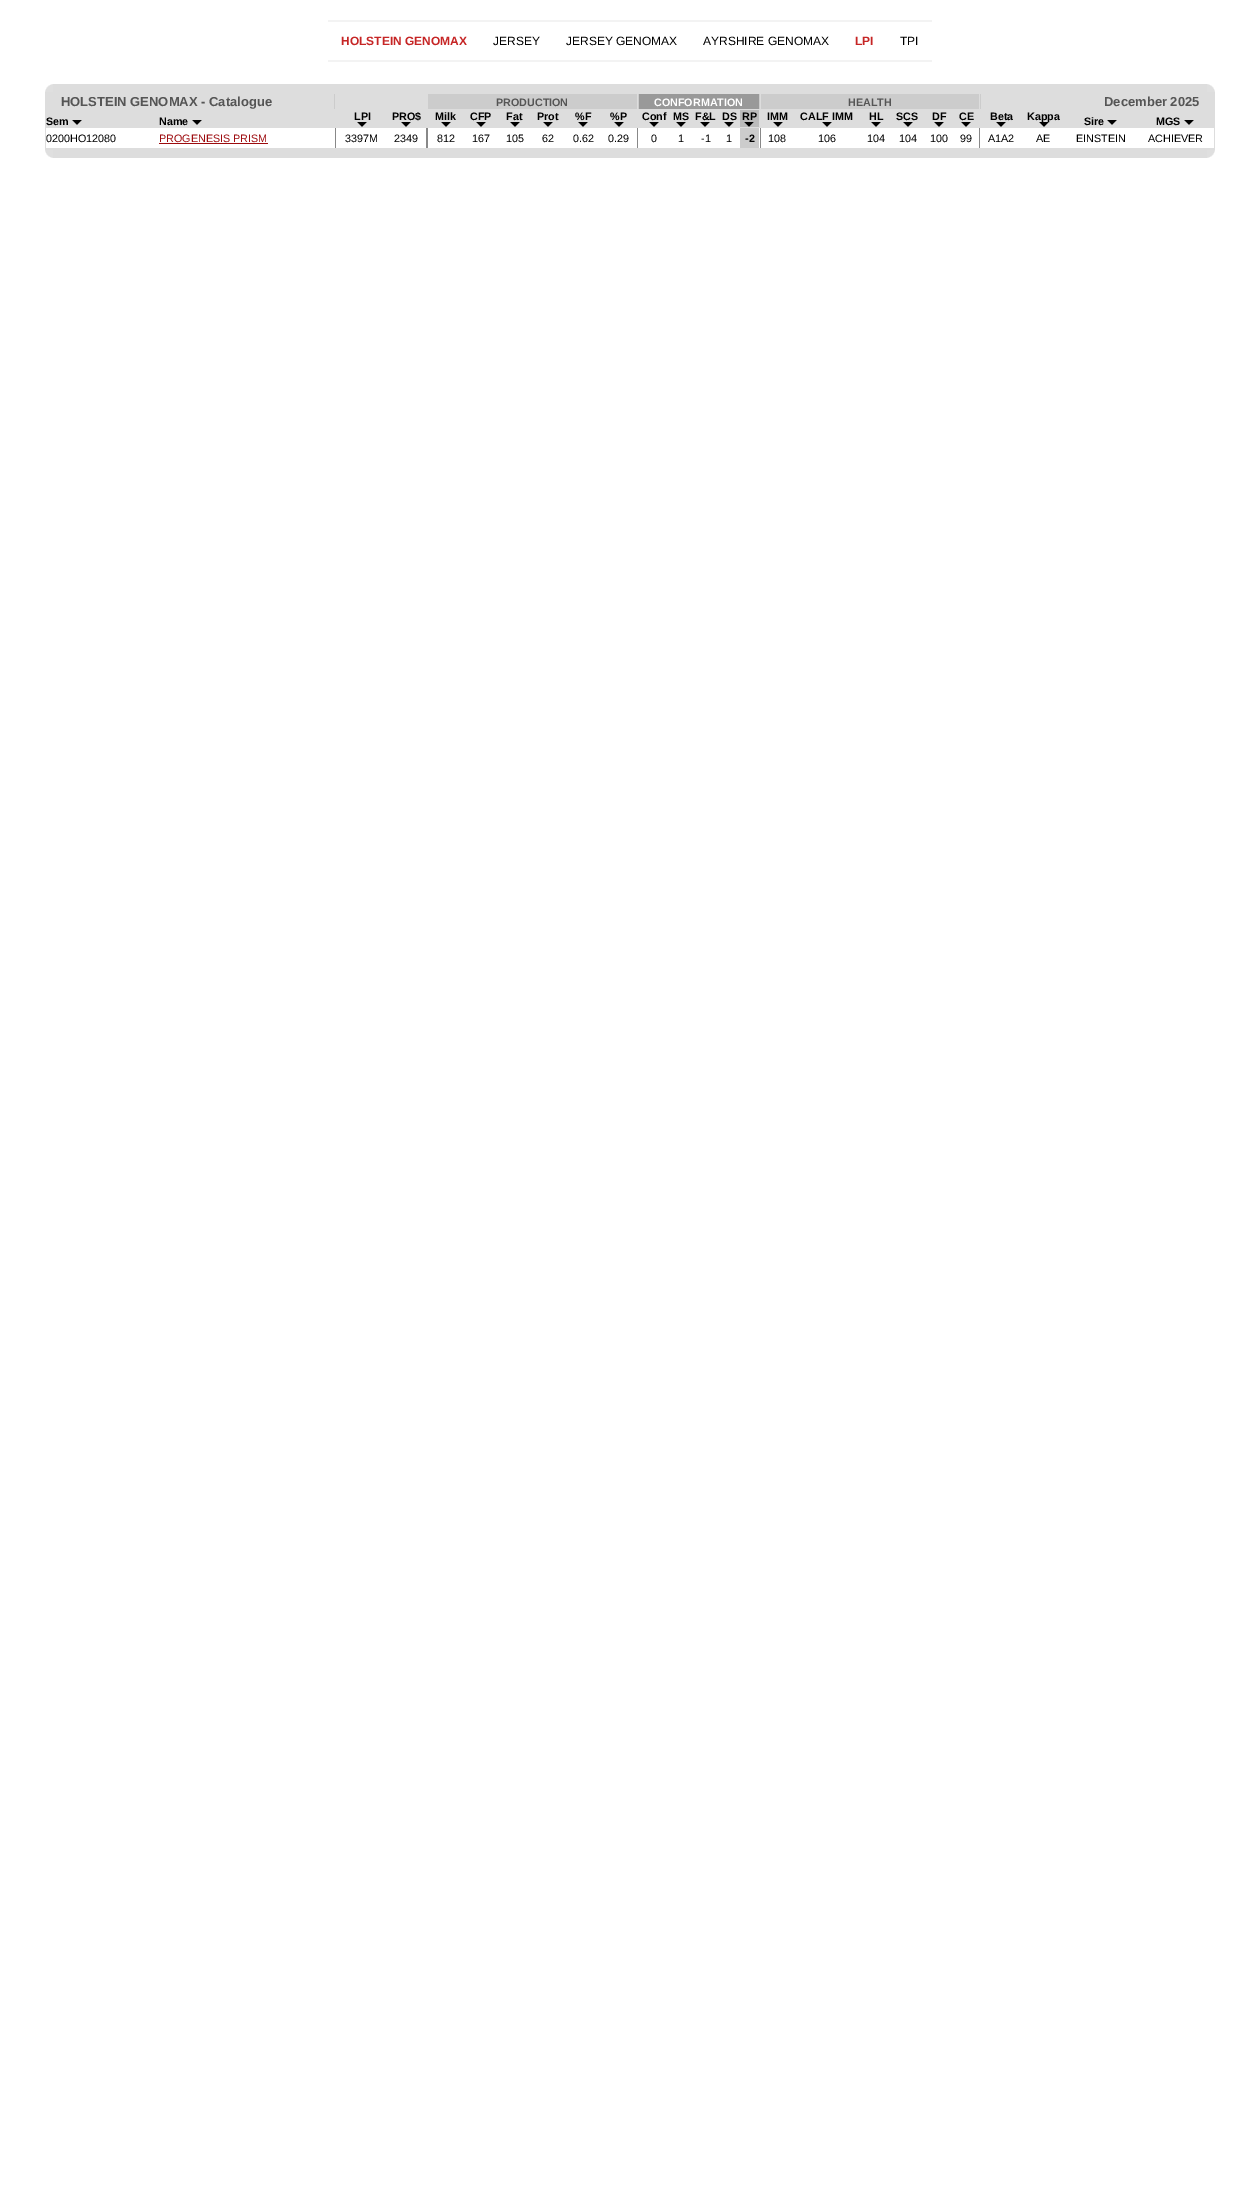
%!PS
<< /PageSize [1260 2208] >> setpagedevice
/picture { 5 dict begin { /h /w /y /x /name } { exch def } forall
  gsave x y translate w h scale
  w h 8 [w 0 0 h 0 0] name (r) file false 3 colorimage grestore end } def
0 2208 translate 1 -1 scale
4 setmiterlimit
1 setgray
0 0 1260 2208 rectfill
0.953 setgray
328 20 604 2 rectfill
/LiberationSans-Bold [12 0 0 -12 0 0] selectfont
0.776 0.145 0.145 setrgbcolor
341 45 moveto (HOLSTEIN GENOMAX) show
/LiberationSans-Regular [12 0 0 -12 0 0] selectfont
0 setgray
493 45 moveto (JERSEY) show
566 45 moveto (JERSEY GENOMAX) show
703 45 moveto (AYRSHIRE GENOMAX) show
/LiberationSans-Bold [12 0 0 -12 0 0] selectfont
0.776 0.145 0.145 setrgbcolor
855 45 moveto (LPI) show
/LiberationSans-Regular [12 0 0 -12 0 0] selectfont
0 setgray
900 45 moveto (TPI) show
0.953 setgray
328 60 604 2 rectfill
0.867 setgray
45 84 1170 74 rectfill
(img1.rgb) 45 84 8 8 picture
(img2.rgb) 1207 84 8 8 picture
0.8 setgray
334 94 647 15 rectfill
/LiberationSans-Bold [13 0 0 -13 0 0] selectfont
0.333 setgray
61 106 moveto (HOLSTEIN GENOMAX - Catalogue) show
0.867 setgray
335 94 93 15 rectfill
/LiberationSans-Bold [10.75 0 0 -10.75 0 0] selectfont
0.333 setgray
496 106 moveto (PRODUCTION) show
0.867 setgray
637 94 1 15 rectfill
0.6 setgray
639 94 120 15 rectfill
1 setgray
654 106 moveto (CONFORMATION) show
0.867 setgray
760 94 1 15 rectfill
0.333 setgray
848 106 moveto (HEALTH) show
0.867 setgray
979 94 1 15 rectfill
/LiberationSans-Bold [13 0 0 -13 0 0] selectfont
0.333 setgray
1104 106 moveto (December 2025) show
/LiberationSans-Bold [10.75 0 0 -10.75 0 0] selectfont
0 setgray
46 125 moveto (Sem) show
(img3.rgb) 72 120 10 5 picture
159 125 moveto (Name) show
(img3.rgb) 192 120 10 5 picture
354 120 moveto (LPI) show
(img3.rgb) 357 122 10 5 picture
392 120 moveto (PRO$) show
(img3.rgb) 401 122 10 5 picture
435 120 moveto (Milk) show
(img3.rgb) 441 122 10 5 picture
470 120 moveto (CFP) show
(img3.rgb) 476 122 10 5 picture
506 120 moveto (Fat) show
(img3.rgb) 510 122 10 5 picture
537 120 moveto (Prot) show
(img3.rgb) 543 122 10 5 picture
575 120 moveto (%F) show
(img3.rgb) 578 122 10 5 picture
610 120 moveto (%P) show
(img3.rgb) 614 122 10 5 picture
642 120 moveto (Conf) show
(img3.rgb) 649 122 10 5 picture
673 120 moveto (MS) show
(img3.rgb) 676 122 10 5 picture
695 120 moveto (F&L) show
(img3.rgb) 700 122 10 5 picture
722 120 moveto (DS) show
(img3.rgb) 724 122 10 5 picture
0.733 setgray
740 110 19 17 rectfill
0 setgray
742 120 moveto (RP) show
(img4.rgb) 744 122 10 5 picture
767 120 moveto (IMM) show
(img3.rgb) 773 122 10 5 picture
800 120 moveto (CALF IMM) show
(img3.rgb) 822 122 10 5 picture
869 120 moveto (HL) show
(img3.rgb) 871 122 10 5 picture
896 120 moveto (SCS) show
(img3.rgb) 903 122 10 5 picture
932 120 moveto (DF) show
(img3.rgb) 934 122 10 5 picture
959 120 moveto (CE) show
(img3.rgb) 961 122 10 5 picture
990 120 moveto (Beta) show
(img3.rgb) 996 122 10 5 picture
1027 120 moveto (Kappa) show
(img3.rgb) 1039 122 10 5 picture
1084 125 moveto (Sire) show
(img3.rgb) 1107 120 10 5 picture
1156 125 moveto (MGS) show
(img3.rgb) 1184 120 10 5 picture
1 setgray
46 128 1168 20 rectfill
/LiberationSans-Regular [10.75 0 0 -10.75 0 0] selectfont
0 setgray
46 142 moveto (0200HO12080) show
0.616 0.043 0.055 setrgbcolor
159 142 moveto (PROGENESIS PRISM) show
159 143 109 1 rectfill
0.533 setgray
335 128 1 20 rectfill
0 setgray
345 142 moveto (3397M) show
394 142 moveto (2349) show
0.533 setgray
426 128 2 20 rectfill
0 setgray
437 142 moveto (812) show
472 142 moveto (167) show
506 142 moveto (105) show
542 142 moveto (62) show
573 142 moveto (0.62) show
608 142 moveto (0.29) show
0.533 setgray
637 128 1 20 rectfill
0 setgray
651 142 moveto (0) show
678 142 moveto (1) show
701 142 moveto (-1) show
726 142 moveto (1) show
0.8 setgray
740 128 19 20 rectfill
/LiberationSans-Bold [10.75 0 0 -10.75 0 0] selectfont
0 setgray
745 142 moveto (-2) show
0.533 setgray
760 128 1 20 rectfill
/LiberationSans-Regular [10.75 0 0 -10.75 0 0] selectfont
0 setgray
768 142 moveto (108) show
818 142 moveto (106) show
867 142 moveto (104) show
899 142 moveto (104) show
930 142 moveto (100) show
960 142 moveto (99) show
0.533 setgray
979 128 1 20 rectfill
0 setgray
988 142 moveto (A1A2) show
1036 142 moveto (AE) show
1076 142 moveto (EINSTEIN) show
1148 142 moveto (ACHIEVER) show
(img5.rgb) 45 150 8 8 picture
(img6.rgb) 1207 150 8 8 picture
showpage
